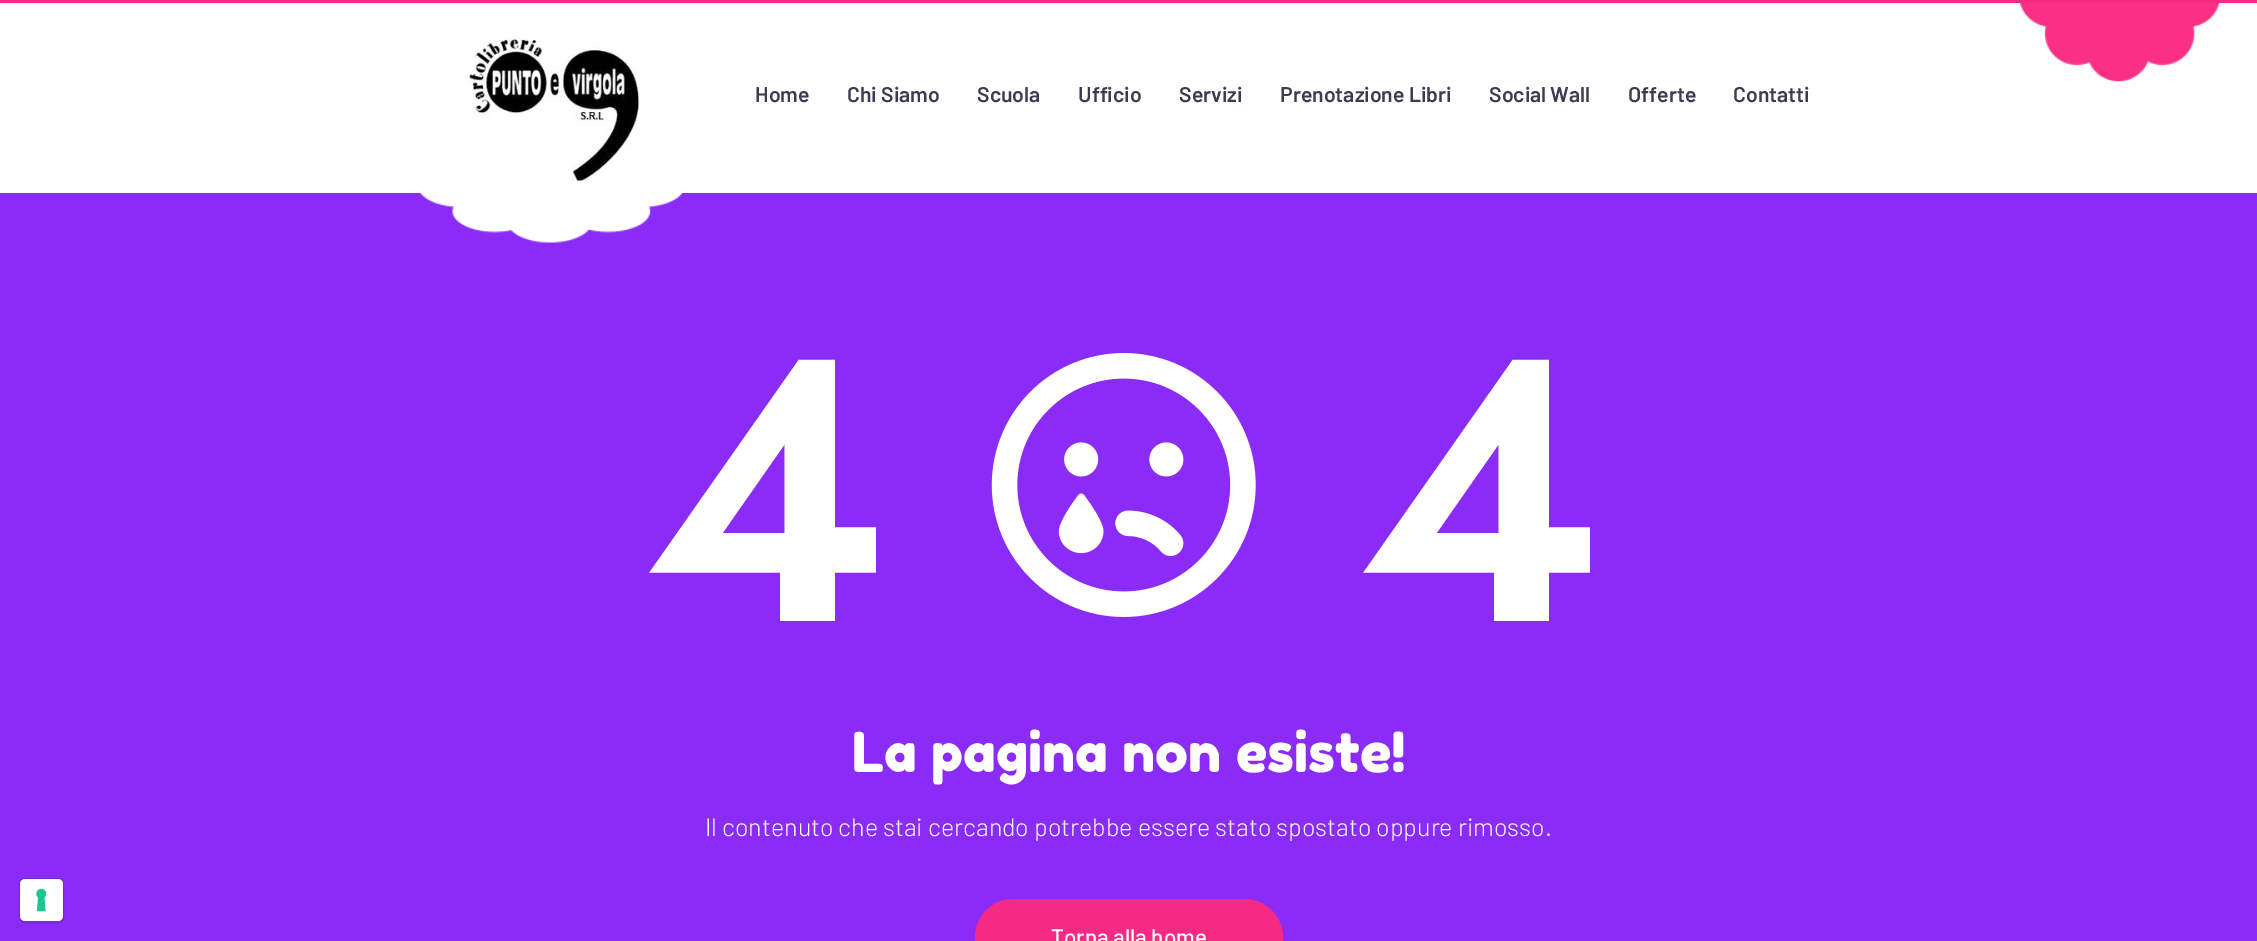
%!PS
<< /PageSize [2257 941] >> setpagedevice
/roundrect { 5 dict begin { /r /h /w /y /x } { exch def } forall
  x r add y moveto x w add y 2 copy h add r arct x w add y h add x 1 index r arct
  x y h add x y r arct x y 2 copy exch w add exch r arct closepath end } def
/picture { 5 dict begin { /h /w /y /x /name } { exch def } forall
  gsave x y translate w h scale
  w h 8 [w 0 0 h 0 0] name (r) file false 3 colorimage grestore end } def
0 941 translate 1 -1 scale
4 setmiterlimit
1 setgray
0 0 2257 941 rectfill
0.961 0.165 0.522 setrgbcolor
0 0 2257 3 rectfill
(img1.rgb) 2020 3 200 79 picture
(img2.rgb) 467 39 172 142 picture
0.545 0.169 0.965 setrgbcolor
0 193 2257 748 rectfill
(img3.rgb) 420 193 263 50 picture
/Barlow-SemiBold [21.25 0 0 -21.25 0 0] selectfont
0.243 0.227 0.325 setrgbcolor
755 102 moveto (Home) show
847 102 moveto (Chi Siamo) show
977 102 moveto (Scuola) show
1078 102 moveto (Ufficio) show
1179 102 moveto (Servizi) show
1280 102 moveto (Prenotazione Libri) show
1489 102 moveto (Social Wall) show
1628 102 moveto (Offerte) show
1733 102 moveto (Contatti) show
0.463 0.145 0.82 setrgbcolor
19.5 878.5 44 44 5.5 roundrect stroke
1 setgray
20 879 43 42 5 roundrect fill
(img4.rgb) 36 888 11 24 picture
/Jost-SemiBold [375 0 0 -375 0 0] selectfont
643 621 moveto (4) show
(img5.rgb) 991 353 265 264 picture
1357 621 moveto (4) show
/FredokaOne-Regular [55 0 0 -55 0 0] selectfont
852 772 moveto (La pagina non esiste!) show
/Barlow-Light [25 0 0 -25 0 0] selectfont
705 836 moveto (Il contenuto che stai cercando potrebbe essere stato spostato oppure rimosso.) show
0.961 0.165 0.522 setrgbcolor
975 899 308 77 38.5 roundrect fill
/Barlow-Medium [22.5 0 0 -22.5 0 0] selectfont
1 setgray
1051 945 moveto (Torna alla home) show
showpage
